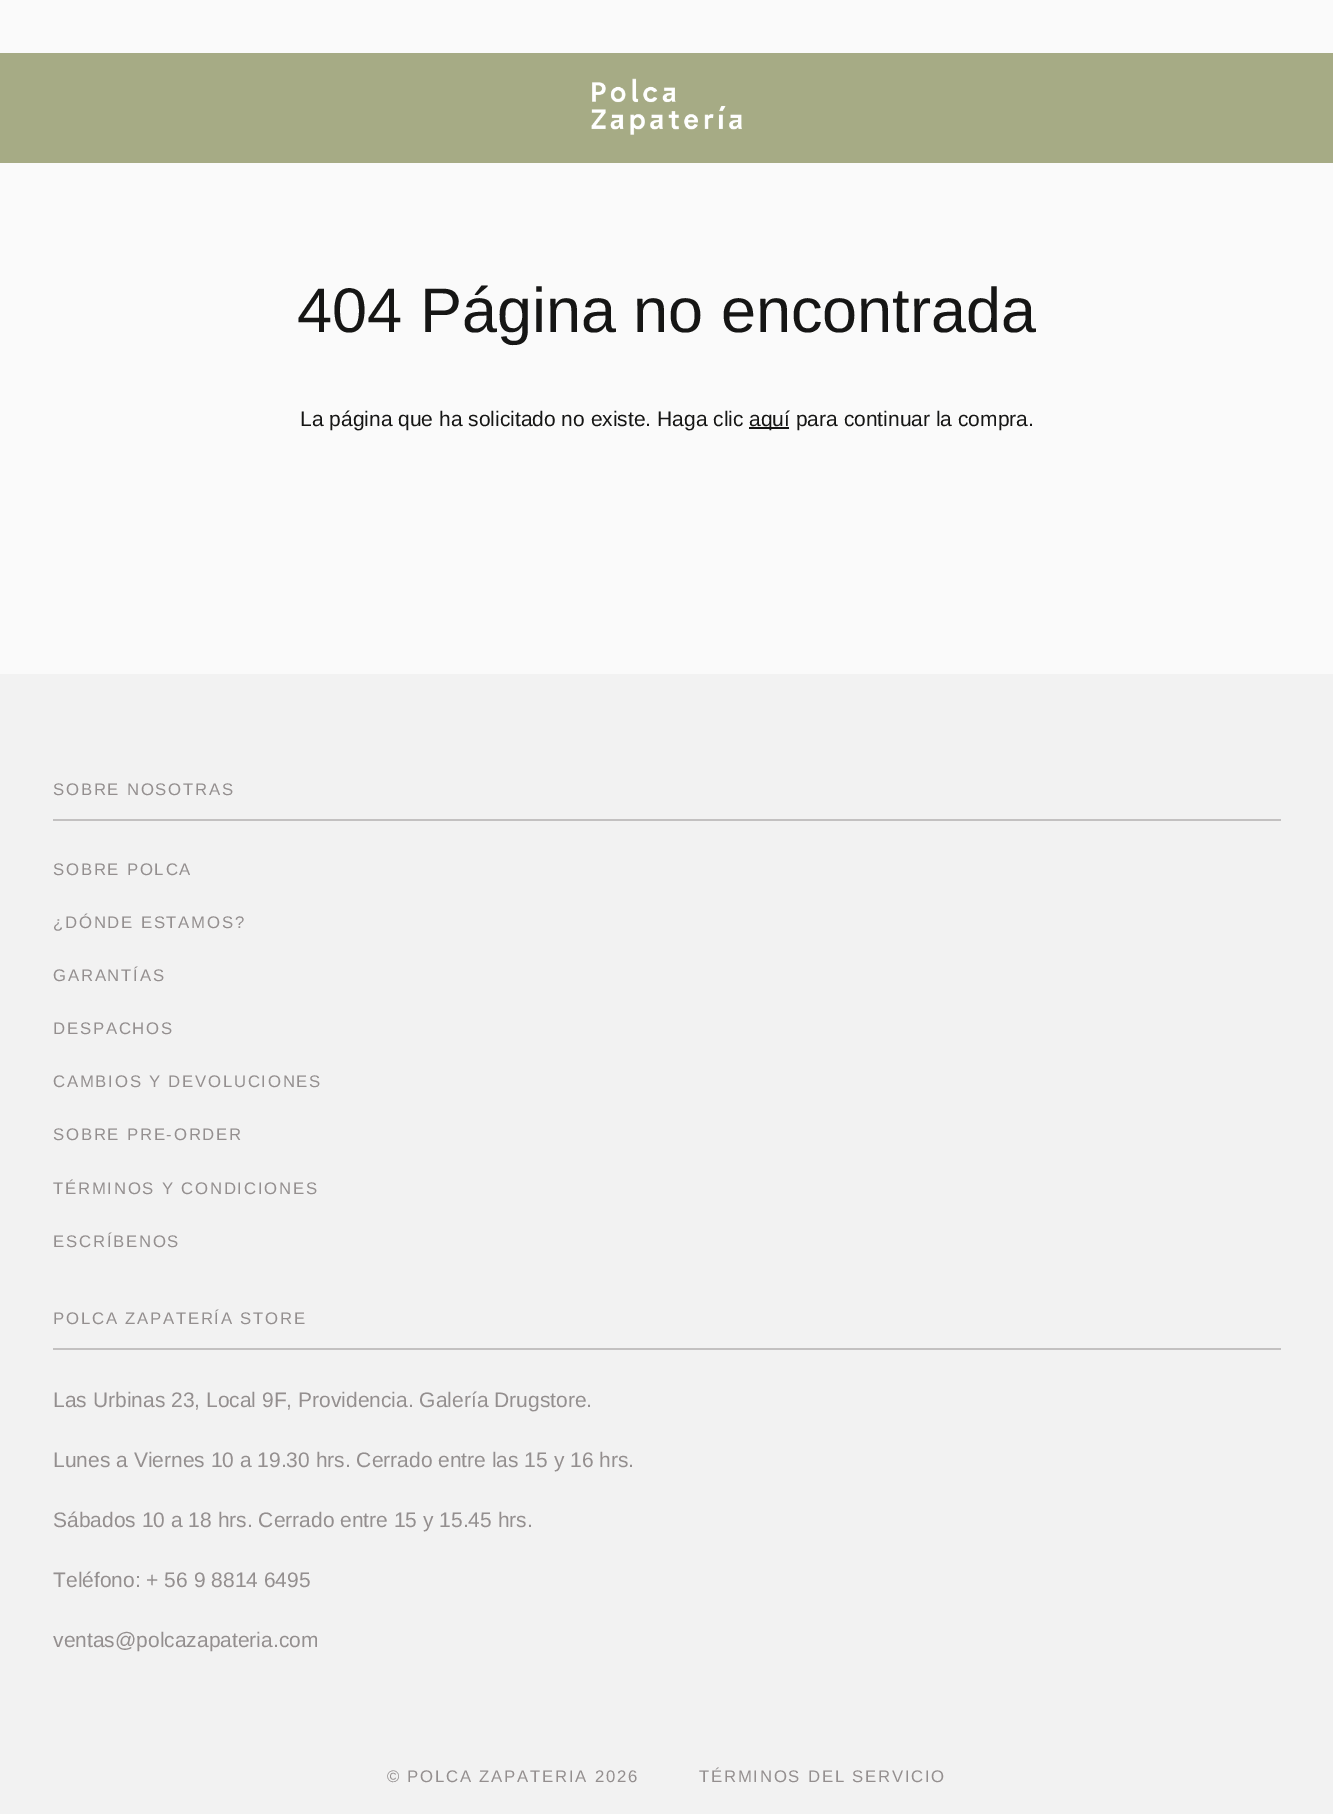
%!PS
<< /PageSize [1333 1814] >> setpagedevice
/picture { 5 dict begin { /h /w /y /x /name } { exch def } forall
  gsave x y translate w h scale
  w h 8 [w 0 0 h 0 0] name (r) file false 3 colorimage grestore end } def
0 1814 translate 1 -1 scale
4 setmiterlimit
0.98 setgray
0 0 1333 1814 rectfill
0.651 0.671 0.522 setrgbcolor
0 53 1333 110 rectfill
(img1.rgb) 591 78 151 57 picture
/LiberationSans-Regular [63 0 0 -63 0 0] selectfont
0.086 0.086 0.082 setrgbcolor
297 332 moveto (404 Página no encontrada) show
/LiberationSans-Regular [21 0 0 -21 0 0] selectfont
300 426 moveto (La página que ha solicitado no existe. Haga clic) show
749 427 40 2 rectfill
749 426 moveto (aquí para continuar la compra.) show
0.949 setgray
0 674 1333 1140 rectfill
/LiberationSans-Regular [16.75 0 0 -16.75 0 0] selectfont
0.58 0.561 0.561 setrgbcolor
53 795 moveto 1.75 0 (SOBRE NOSOTRAS) ashow
0.765 0.757 0.757 setrgbcolor
53 819 1228 2 rectfill
0.58 0.561 0.561 setrgbcolor
53 875 moveto 1.75 0 (SOBRE POLCA) ashow
53 928 moveto 1.75 0 (¿DÓNDE ESTAMOS?) ashow
53 981 moveto 1.75 0 (GARANTÍAS) ashow
53 1034 moveto 1.75 0 (DESPACHOS) ashow
53 1087 moveto 1.75 0 (CAMBIOS Y DEVOLUCIONES) ashow
53 1140 moveto 1.75 0 (SOBRE PRE-ORDER) ashow
53 1194 moveto 1.75 0 (TÉRMINOS Y CONDICIONES) ashow
53 1247 moveto 1.75 0 (ESCRÍBENOS) ashow
53 1324 moveto 1.75 0 (POLCA ZAPATERÍA STORE) ashow
0.765 0.757 0.757 setrgbcolor
53 1348 1228 2 rectfill
/LiberationSans-Regular [21 0 0 -21 0 0] selectfont
0.58 0.561 0.561 setrgbcolor
53 1407 moveto (Las Urbinas 23, Local 9F, Providencia. Galería Drugstore.) show
53 1467 moveto (Lunes a Viernes 10 a 19.30 hrs. Cerrado entre las 15 y 16 hrs.) show
53 1527 moveto (Sábados 10 a 18 hrs. Cerrado entre 15 y 15.45 hrs.) show
53 1587 moveto (Teléfono: + 56 9 8814 6495) show
53 1647 moveto (ventas@polcazapateria.com) show
/LiberationSans-Regular [16.75 0 0 -16.75 0 0] selectfont
387 1782 moveto 1.75 0 (© POLCA ZAPATERIA 2026) ashow
699 1782 moveto 1.75 0 (TÉRMINOS DEL SERVICIO) ashow
showpage
